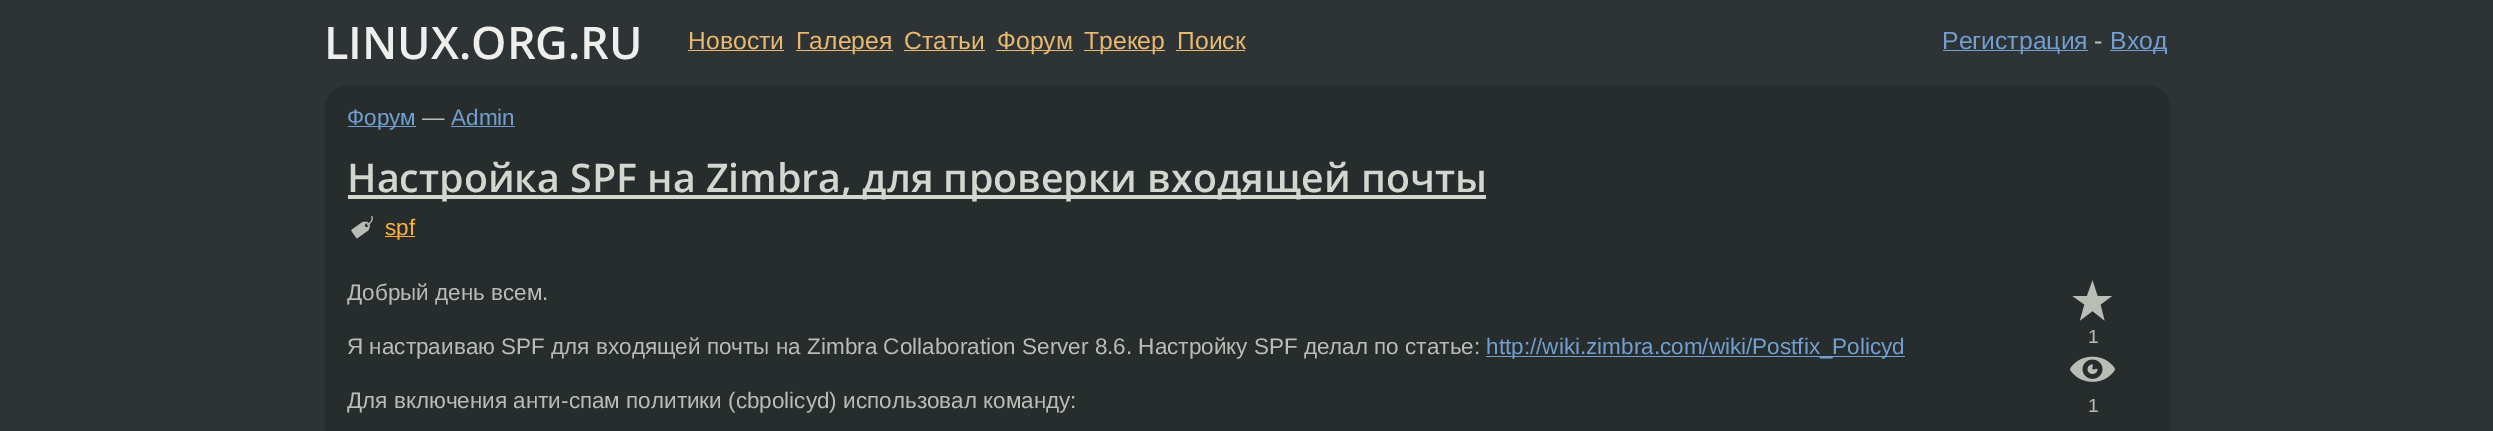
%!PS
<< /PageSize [2493 431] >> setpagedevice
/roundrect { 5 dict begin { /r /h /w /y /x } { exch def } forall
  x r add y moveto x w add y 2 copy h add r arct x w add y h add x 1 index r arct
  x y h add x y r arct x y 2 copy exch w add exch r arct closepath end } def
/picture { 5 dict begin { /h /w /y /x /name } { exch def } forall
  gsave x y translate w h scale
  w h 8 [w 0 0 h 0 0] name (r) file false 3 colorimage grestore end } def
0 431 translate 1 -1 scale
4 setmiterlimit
0.18 0.204 0.212 setrgbcolor
0 0 2493 431 rectfill
/OpenSans-SemiBold [45 0 0 -45 0 0] selectfont
0.933 0.933 0.925 setrgbcolor
324 59 moveto (LINUX.ORG.RU) show
/LiberationSans-Regular [24.75 0 0 -24.75 0 0] selectfont
0.914 0.725 0.431 setrgbcolor
688 49 moveto (Новости) show
688 50 96 1 rectfill
796 50 97 1 rectfill
796 49 moveto (Галерея) show
904 49 moveto (Статьи) show
904 50 81 1 rectfill
996 50 77 1 rectfill
997 49 moveto (Форум) show
1084 50 81 1 rectfill
1084 49 moveto (Трекер) show
1177 49 moveto (Поиск) show
1176 50 69 1 rectfill
0.447 0.624 0.812 setrgbcolor
1943 50 145 1 rectfill
1942 49 moveto (Регистрация) show
0.729 0.741 0.714 setrgbcolor
2094 49 moveto (-) show
0.447 0.624 0.812 setrgbcolor
2110 50 56 1 rectfill
2110 49 moveto (Вход) show
0.153 0.173 0.176 setrgbcolor
325 85 1845 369 23 roundrect fill
0.447 0.624 0.812 setrgbcolor
348 126 68 1 rectfill
/LiberationSans-Regular [22.5 0 0 -22.5 0 0] selectfont
347 125 moveto (Форум) show
0.729 0.741 0.714 setrgbcolor
422 125 moveto (—) show
0.447 0.624 0.812 setrgbcolor
451 125 moveto (Admin) show
451 126 64 1 rectfill
0.827 0.843 0.812 setrgbcolor
348 195 1138 4 rectfill
/OpenSans-SemiBold [39.4 0 0 -39.4 0 0] selectfont
347 192 moveto (Настройка SPF на Zimbra, для проверки входящей почты) show
(img1.rgb) 351 215 22 24 picture
0.988 0.686 0.243 setrgbcolor
385 236 30 1 rectfill
/LiberationSans-Regular [22.5 0 0 -22.5 0 0] selectfont
385 235 moveto (spf) show
0.729 0.741 0.714 setrgbcolor
347 300 moveto (Добрый день всем.) show
347 354 moveto (Я настраиваю SPF для входящей почты на Zimbra Collaboration Server 8.6. Настройку SPF делал по статье:) show
0.447 0.624 0.812 setrgbcolor
1486 356 419 1 rectfill
1486 354 moveto (http://wiki.zimbra.com/wiki/Postfix_Policyd) show
0.729 0.741 0.714 setrgbcolor
347 408 moveto (Для включения анти-спам политики \(cbpolicyd\) использовал команду:) show
newpath 2092.5 280.5 moveto 2097.5 296 lineto 2112 296 lineto 2100.5 304.5 lineto 2104.5 320.5 lineto 2092.5 311 lineto 2080 320.5 lineto 2084.5 304.5 lineto 2072.5 296 lineto 2087 296 lineto closepath fill
/LiberationSans-Regular [19 0 0 -19 0 0] selectfont
2088 343 moveto (1) show
(img2.rgb) 2070 356 45 26 picture
2088 412 moveto (1) show
showpage
